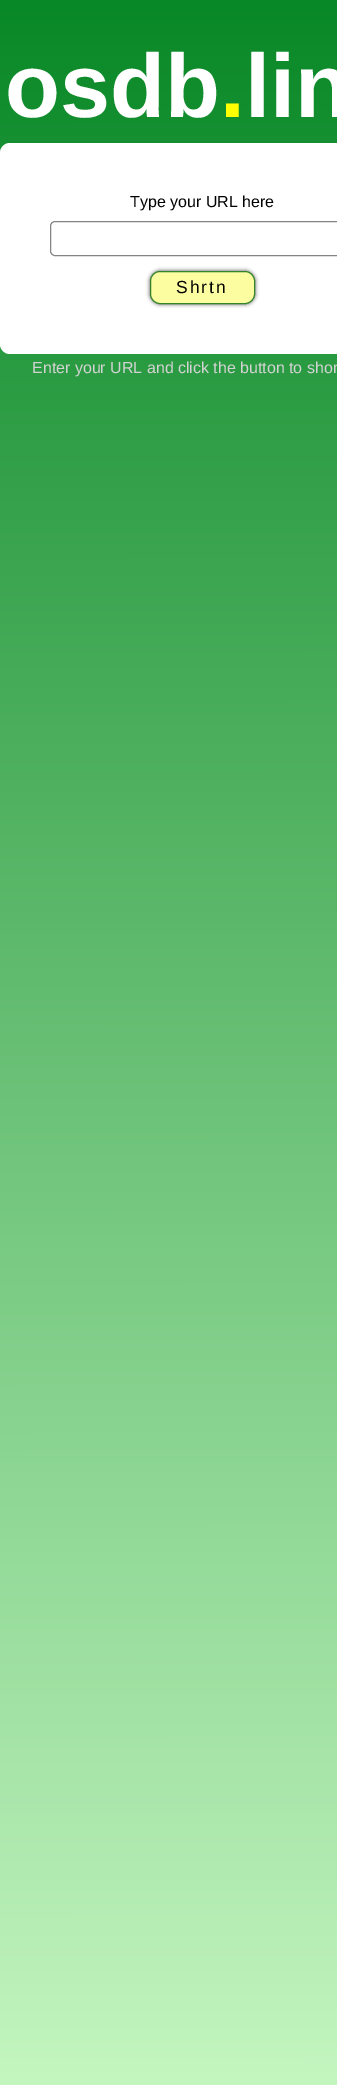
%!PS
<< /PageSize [337 2085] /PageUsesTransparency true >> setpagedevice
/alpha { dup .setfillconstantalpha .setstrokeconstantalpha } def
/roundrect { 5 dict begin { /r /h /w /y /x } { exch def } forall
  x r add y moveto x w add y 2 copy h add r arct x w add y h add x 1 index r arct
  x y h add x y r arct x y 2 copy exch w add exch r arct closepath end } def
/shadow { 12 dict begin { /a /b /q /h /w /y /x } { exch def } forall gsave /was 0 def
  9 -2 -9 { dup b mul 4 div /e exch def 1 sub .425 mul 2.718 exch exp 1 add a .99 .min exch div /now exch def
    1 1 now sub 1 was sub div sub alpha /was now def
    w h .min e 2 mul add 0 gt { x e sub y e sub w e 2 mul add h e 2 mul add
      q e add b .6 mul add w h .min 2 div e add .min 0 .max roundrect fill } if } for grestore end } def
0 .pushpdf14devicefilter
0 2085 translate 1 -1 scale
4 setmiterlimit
1 setgray
0 0 337 2085 rectfill
gsave newpath 0 0 moveto 337 0 lineto 337 2085 lineto 0 2085 lineto closepath clip newpath
<< /ShadingType 2 /ColorSpace /DeviceRGB /Coords [168 0 169 2085] /Extend [true true] /Function << /FunctionType 2 /Domain [0 1] /C0 [0.035 0.533 0.153] /C1 [0.769 0.965 0.753] /N 1 >> >> shfill grestore
/LiberationSans-Bold [90 0 0 -90 0 0] selectfont
5 117 moveto (osdb lin) show
1 1 0 setrgbcolor
220 117 moveto (.) show
1 setgray
0 143 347 211 10 roundrect fill
/LiberationSans-Regular [16 0 0 -16 0 0] selectfont
0 setgray
130 207 moveto (Type your URL here) show
0.518 setgray
50.5 221.5 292 34 4.5 roundrect stroke
0 setgray
150 271 105 33 10 2 0.75 shadow
0.988 0.988 0.627 setrgbcolor
150.5 271.5 104 32 9.5 roundrect gsave fill grestore
0.2 0.518 0.165 setrgbcolor
stroke
/LiberationSans-Regular [17.5 0 0 -17.5 0 0] selectfont
0 setgray
176 293 moveto 2 0 (Shrtn) ashow
/LiberationSans-Regular [16 0 0 -16 0 0] selectfont
0.827 setgray
32 373 moveto (Enter your URL and click the button to shor) show
.poppdf14devicefilter showpage
